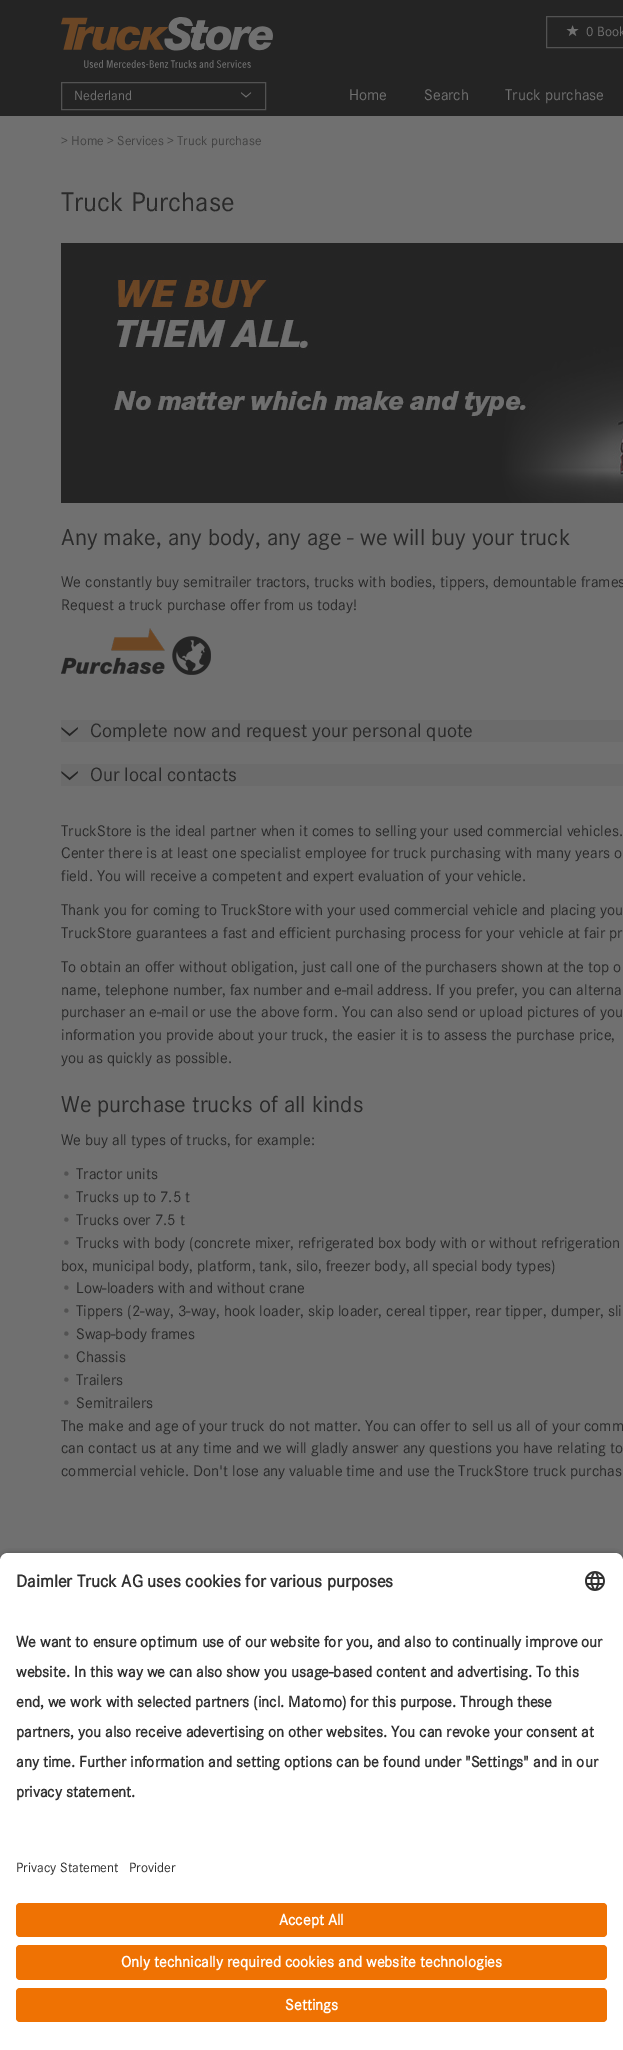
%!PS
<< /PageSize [623 2050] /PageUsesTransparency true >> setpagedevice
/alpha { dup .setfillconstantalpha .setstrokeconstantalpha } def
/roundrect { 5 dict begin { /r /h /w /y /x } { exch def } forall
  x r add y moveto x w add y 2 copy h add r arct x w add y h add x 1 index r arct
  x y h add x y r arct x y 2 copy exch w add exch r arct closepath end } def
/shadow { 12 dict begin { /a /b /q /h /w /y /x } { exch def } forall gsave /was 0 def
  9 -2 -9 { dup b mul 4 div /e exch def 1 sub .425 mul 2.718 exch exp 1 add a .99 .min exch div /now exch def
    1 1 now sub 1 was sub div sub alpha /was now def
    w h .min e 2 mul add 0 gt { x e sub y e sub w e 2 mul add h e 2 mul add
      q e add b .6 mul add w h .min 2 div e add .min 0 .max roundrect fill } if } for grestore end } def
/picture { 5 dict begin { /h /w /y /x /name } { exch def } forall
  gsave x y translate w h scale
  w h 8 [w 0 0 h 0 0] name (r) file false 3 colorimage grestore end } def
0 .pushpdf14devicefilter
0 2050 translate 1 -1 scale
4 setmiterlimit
0.439 setgray
0 0 623 2050 rectfill
0.141 setgray
0 0 623 116 rectfill
(img1.rgb) 61 17 212 51 picture
0.322 setgray
546.5 16.5 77 31 rectstroke
(img2.rgb) 566 25 13 11 picture
/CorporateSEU-Regular [14 0 0 -14 0 0] selectfont
0.439 setgray
586 36 moveto (0 Book) show
0.322 setgray
61.5 82.5 204 27 rectstroke
0.439 setgray
74 100 moveto (Nederland) show
(img3.rgb) 240 92 12 6 picture
/CorporateSEU-Regular [16 0 0 -16 0 0] selectfont
349 100 moveto (Home) show
424 100 moveto (Search) show
505 100 moveto (Truck purchase) show
/CorporateSEU-Regular [13.6 0 0 -13.6 0 0] selectfont
0.259 setgray
61 145 moveto (> Home > Services > Truck purchase) show
/CorporateSEU-Regular [28 0 0 -28 0 0] selectfont
0.161 setgray
61 211 moveto (Truck Purchase) show
(img4.rgb) 61 243 562 260 picture
/CorporateSEU-Regular [24 0 0 -24 0 0] selectfont
61 545 moveto (Any make, any body, any age - we will buy your truck) show
/CorporateSEU-Regular [16 0 0 -16 0 0] selectfont
61 587 moveto (We constantly buy semitrailer tractors, trucks with bodies, tippers, demountable frames) show
61 610 moveto (Request a truck purchase offer from us today!) show
(img5.rgb) 61 628 150 47 picture
0.42 setgray
61 720 562 22 rectfill
(img6.rgb) 61 727 17 10 picture
/CorporateSEU-Regular [20 0 0 -20 0 0] selectfont
0.161 setgray
90 737 moveto (Complete now and request your personal quote) show
0.42 setgray
61 764 562 22 rectfill
(img6.rgb) 61 771 17 10 picture
0.161 setgray
90 781 moveto (Our local contacts) show
/CorporateSEU-Regular [16 0 0 -16 0 0] selectfont
61 836 moveto (TruckStore is the ideal partner when it comes to selling your used commercial vehicles.) show
61 858 moveto (Center there is at least one specialist employee for truck purchasing with many years o) show
61 881 moveto (field. You will receive a competent and expert evaluation of your vehicle.) show
61 915 moveto (Thank you for coming to TruckStore with your used commercial vehicle and placing you) show
61 938 moveto (TruckStore guarantees a fast and efficient purchasing process for your vehicle at fair pr) show
61 972 moveto (To obtain an offer without obligation, just call one of the purchasers shown at the top o) show
61 995 moveto (name, telephone number, fax number and e-mail address. If you prefer, you can alterna) show
61 1017 moveto (purchaser an e-mail or use the above form. You can also send or upload pictures of you) show
61 1040 moveto (information you provide about your truck, the easier it is to assess the purchase price,) show
61 1063 moveto (you as quickly as possible.) show
/CorporateSEU-Regular [24 0 0 -24 0 0] selectfont
61 1112 moveto (We purchase trucks of all kinds) show
/CorporateSEU-Regular [16 0 0 -16 0 0] selectfont
61 1145 moveto (We buy all types of trucks, for example:) show
0.322 setgray
61 1179 moveto (•) show
0.161 setgray
76 1179 moveto (Tractor units) show
0.322 setgray
61 1202 moveto (•) show
0.161 setgray
76 1202 moveto (Trucks up to 7.5 t) show
0.322 setgray
61 1225 moveto (•) show
0.161 setgray
76 1225 moveto (Trucks over 7.5 t) show
0.322 setgray
61 1248 moveto (•) show
0.161 setgray
76 1248 moveto (Trucks with body \(concrete mixer, refrigerated box body with or without refrigeration) show
61 1271 moveto (box, municipal body, platform, tank, silo, freezer body, all special body types\)) show
0.322 setgray
61 1293 moveto (•) show
0.161 setgray
76 1293 moveto (Low-loaders with and without crane) show
0.322 setgray
61 1316 moveto (•) show
0.161 setgray
76 1316 moveto (Tippers \(2-way, 3-way, hook loader, skip loader, cereal tipper, rear tipper, dumper, sli) show
0.322 setgray
61 1339 moveto (•) show
0.161 setgray
76 1339 moveto (Swap-body frames) show
0.322 setgray
61 1362 moveto (•) show
0.161 setgray
76 1362 moveto (Chassis) show
0.322 setgray
61 1385 moveto (•) show
0.161 setgray
76 1385 moveto (Trailers) show
0.322 setgray
61 1408 moveto (•) show
0.161 setgray
76 1408 moveto (Semitrailers) show
61 1431 moveto (The make and age of your truck do not matter. You can offer to sell us all of your comm) show
61 1453 moveto (can contact us at any time and we will gladly answer any questions you have relating to) show
61 1476 moveto (commercial vehicle. Don't lose any valuable time and use the TruckStore truck purchas) show
0 setgray
0 1556 623 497 8 3.5 0.8 shadow
1 setgray
newpath 8 1553 moveto 615 1553 lineto 619.5 1553 623 1556.5 623 1561 curveto 623 1845 lineto 0 1845 lineto 0 1561 lineto 0 1556.5 3.5 1553 8 1553 curveto closepath fill
/CorporateSEU-Bold [18 0 0 -18 0 0] selectfont
0.188 setgray
16 1587 moveto (Daimler Truck AG uses cookies for various purposes) show
(img7.rgb) 585 1571 20 20 picture
/CorporateSEU-Bold [16 0 0 -16 0 0] selectfont
16 1647 moveto (We want to ensure optimum use of our website for you, and also to continually improve our) show
16 1677 moveto (website. In this way we can also show you usage-based content and advertising. To this) show
16 1707 moveto (end, we work with selected partners \(incl. Matomo\) for this purpose. Through these) show
16 1737 moveto (partners, you also receive adevertising on other websites. You can revoke your consent at) show
16 1767 moveto (any time. Further information and setting options can be found under "Settings" and in our) show
16 1797 moveto (privacy statement.) show
1 setgray
0 1845 623 205 rectfill
/CorporateSEU-Regular [14 0 0 -14 0 0] selectfont
0.188 setgray
16 1872 moveto (Privacy Statement) show
129 1872 moveto (Provider) show
0.937 0.447 0.012 setrgbcolor
16 1903 591 34 4 roundrect fill
/CorporateSEU-Bold [16 0 0 -16 0 0] selectfont
1 setgray
279 1925 moveto (Accept All) show
0.937 0.447 0.012 setrgbcolor
16 1945 591 35 4 roundrect fill
1 setgray
121 1967 moveto (Only technically required cookies and website technologies) show
0.937 0.447 0.012 setrgbcolor
16 1988 591 34 4 roundrect fill
1 setgray
285 2010 moveto (Settings) show
.poppdf14devicefilter showpage
